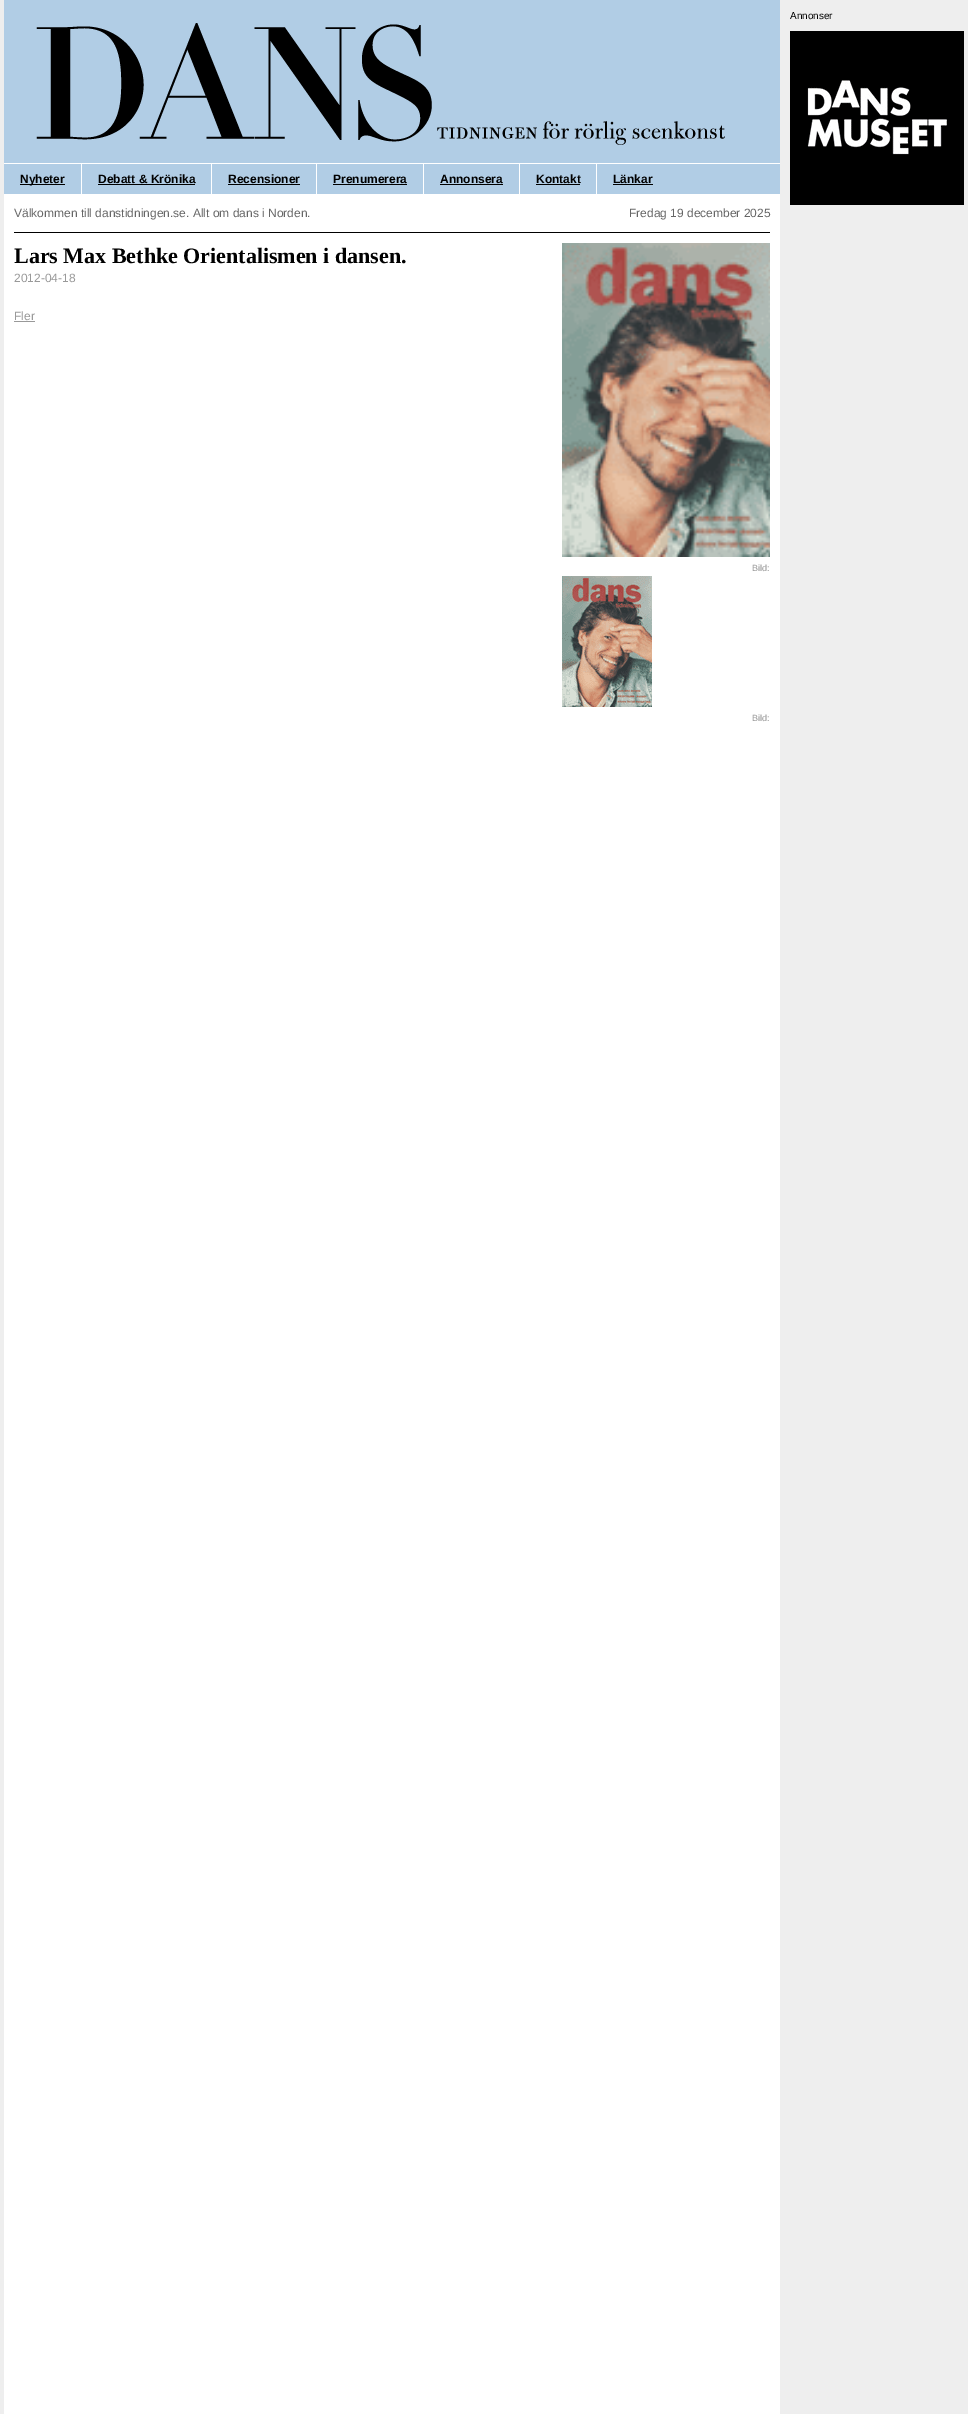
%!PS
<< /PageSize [968 2414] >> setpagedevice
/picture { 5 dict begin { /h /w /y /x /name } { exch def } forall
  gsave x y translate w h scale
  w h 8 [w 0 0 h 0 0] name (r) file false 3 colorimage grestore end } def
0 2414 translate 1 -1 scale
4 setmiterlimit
0.933 setgray
0 0 968 2414 rectfill
1 setgray
4 163 776 2251 rectfill
/LiberationSans-Regular [10 0 0 -10 0 0] selectfont
0 setgray
790 19 moveto (Annonser) show
(img1.rgb) 790 31 174 174 picture
0.694 0.804 0.898 setrgbcolor
4 0 776 163 rectfill
(img2.rgb) 36 23 689 122 picture
4 164 776 30 rectfill
0 setgray
20 184 45 1 rectfill
/LiberationSans-Bold [12 0 0 -12 0 0] selectfont
20 183 moveto (Nyheter) show
1 setgray
81 164 1 30 rectfill
0 setgray
98 183 moveto (Debatt & Krönika) show
98 184 97 1 rectfill
1 setgray
211 164 1 30 rectfill
0 setgray
228 183 moveto (Recensioner) show
228 184 72 1 rectfill
1 setgray
316 164 1 30 rectfill
0 setgray
333 183 moveto (Prenumerera) show
333 184 74 1 rectfill
1 setgray
423 164 1 30 rectfill
0 setgray
440 183 moveto (Annonsera) show
440 184 63 1 rectfill
1 setgray
519 164 1 30 rectfill
0 setgray
536 183 moveto (Kontakt) show
536 184 44 1 rectfill
1 setgray
596 164 1 30 rectfill
0 setgray
613 183 moveto (Länkar) show
613 184 40 1 rectfill
/LiberationSans-Regular [12 0 0 -12 0 0] selectfont
0.4 setgray
14 217 moveto (Välkommen till danstidningen.se. Allt om dans i Norden.) show
629 217 moveto (Fredag 19 december 2025) show
0 setgray
14 232 756 1 rectfill
/LiberationSerif-Bold [22 0 0 -22 0 0] selectfont
14 263 moveto (Lars Max Bethke Orientalismen i dansen.) show
/LiberationSans-Regular [12 0 0 -12 0 0] selectfont
0.6 setgray
14 282 moveto (2012-04-18) show
14 320 moveto (Fler) show
14 321 21 1 rectfill
(img3.rgb) 562 243 208 314 picture
/LiberationSans-Regular [9 0 0 -9 0 0] selectfont
752 571 moveto (Bild:) show
(img4.rgb) 562 576 90 131 picture
752 721 moveto (Bild:) show
showpage
